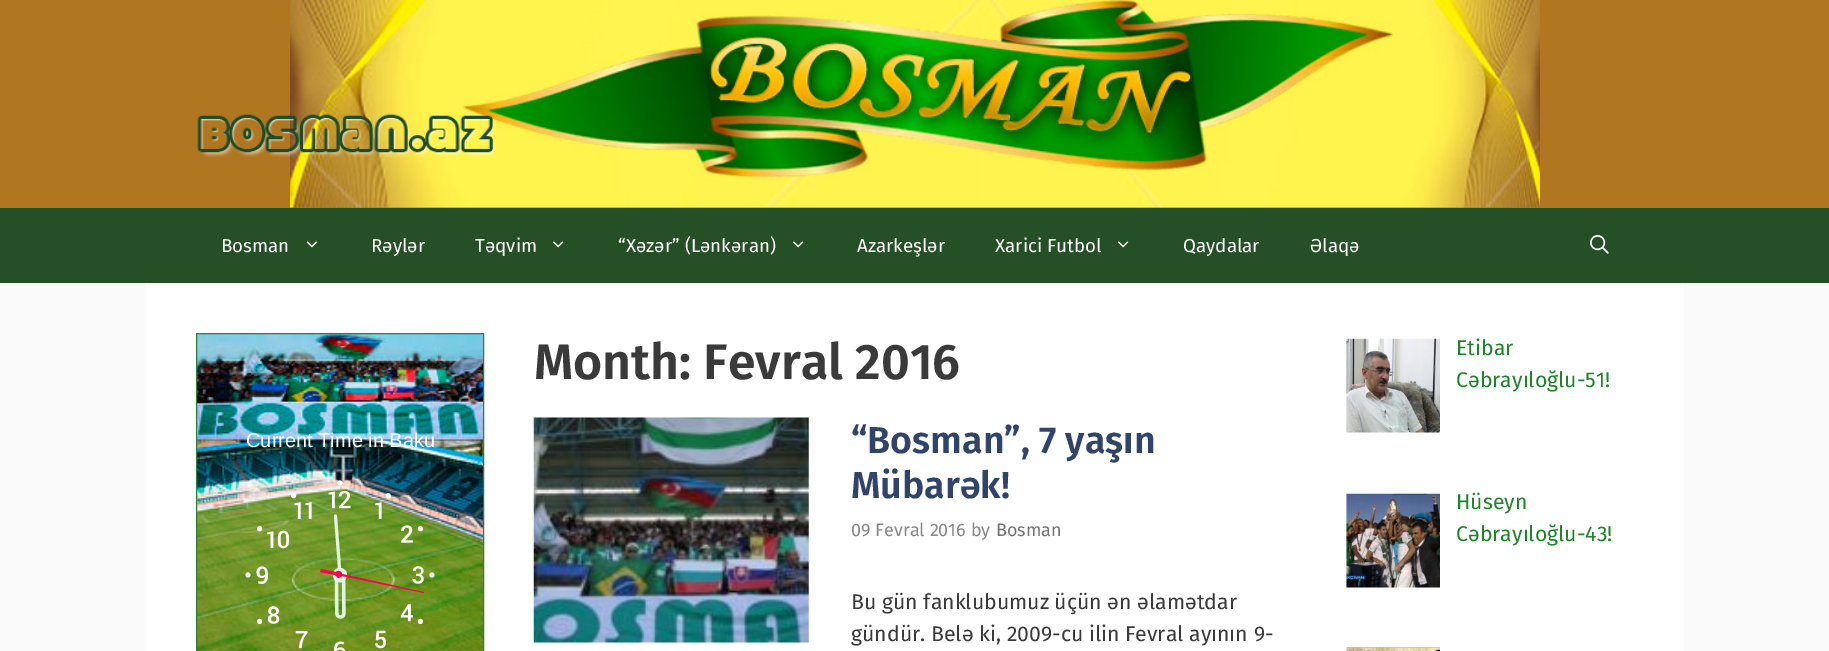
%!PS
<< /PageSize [1829 651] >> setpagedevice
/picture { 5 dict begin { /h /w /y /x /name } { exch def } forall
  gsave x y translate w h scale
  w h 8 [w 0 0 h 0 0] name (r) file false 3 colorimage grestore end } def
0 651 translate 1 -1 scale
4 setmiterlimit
0.98 setgray
0 0 1829 651 rectfill
0.69 0.463 0.125 setrgbcolor
0 0 1829 208 rectfill
(img1.rgb) 290 0 1250 208 picture
(img2.rgb) 197 114 299 43 picture
0.145 0.31 0.141 setrgbcolor
0 208 1829 75 rectfill
/FiraSans-Regular [18.75 0 0 -18.75 0 0] selectfont
1 setgray
221 252 moveto (Bosman) show
(img3.rgb) 306 241 11 7 picture
371 252 moveto (Rəylər) show
475 252 moveto (Təqvim) show
(img4.rgb) 553 241 11 7 picture
618 252 moveto (“Xəzər” \(Lənkəran\)) show
(img4.rgb) 793 241 11 7 picture
857 252 moveto (Azarkeşlər) show
995 252 moveto (Xarici Futbol) show
(img4.rgb) 1118 241 11 7 picture
1183 252 moveto (Qaydalar) show
1310 252 moveto (Əlaqə) show
(img5.rgb) 1590 235 19 19 picture
146 283 1538 368 rectfill
(img6.rgb) 197 334 286 317 picture
0.161 0.506 0.212 setrgbcolor
196.5 333.5 287 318 rectstroke
/LiberationSans-Regular [20 0 0 -20 0 0] selectfont
1 setgray
246 447 moveto (Current Time in Baku) show
(img7.rgb) 245 480 190 171 picture
(img8.rgb) 334 568 12 51 picture
0.886 0.961 0.878 setrgbcolor
newpath 341 568 moveto 337 516 lineto 337 515 336 514 334 515 curveto 334 516 lineto 338 568 lineto 336 569 334 570 334 572 curveto 332 574 333 577 334 579 curveto 343 590 354 571 341 568 curveto closepath fill
1 0 0.318 setrgbcolor
newpath 338 578 moveto 339 578 341 577 342 576 curveto 424 593 lineto 424 592 lineto 342 574 lineto 342 571 338 570 336 572 curveto 321 569 lineto 320 572 lineto 335 575 lineto 336 576 337 577 338 578 curveto closepath fill
/FiraSans-SemiBold [50 0 0 -50 0 0] selectfont
0.227 setgray
534 379 moveto (Month: Fevral 2016) show
(img9.rgb) 533 417 276 226 picture
/FiraSans-SemiBold [37.5 0 0 -37.5 0 0] selectfont
0.184 0.267 0.408 setrgbcolor
851 453 moveto (“Bosman”, 7 yaşın) show
851 498 moveto (Mübarək!) show
/FiraSans-Regular [18 0 0 -18 0 0] selectfont
0.529 setgray
851 536 moveto (09 Fevral 2016 by) show
0.447 setgray
996 536 moveto (Bosman) show
/FiraSans-Regular [21.25 0 0 -21.25 0 0] selectfont
0.227 setgray
851 609 moveto (Bu gün fanklubumuz üçün ən əlamətdar) show
851 641 moveto (gündür. Belə ki, 2009-cu ilin Fevral ayının 9-) show
(img10.rgb) 1346 338 94 95 picture
0.114 0.518 0.161 setrgbcolor
1456 355 moveto (Etibar) show
1456 387 moveto (Cəbrayıloğlu-51!) show
(img11.rgb) 1346 493 94 95 picture
1456 509 moveto (Hüseyn) show
1456 541 moveto (Cəbrayıloğlu-43!) show
(img12.rgb) 1346 647 94 4 picture
showpage
